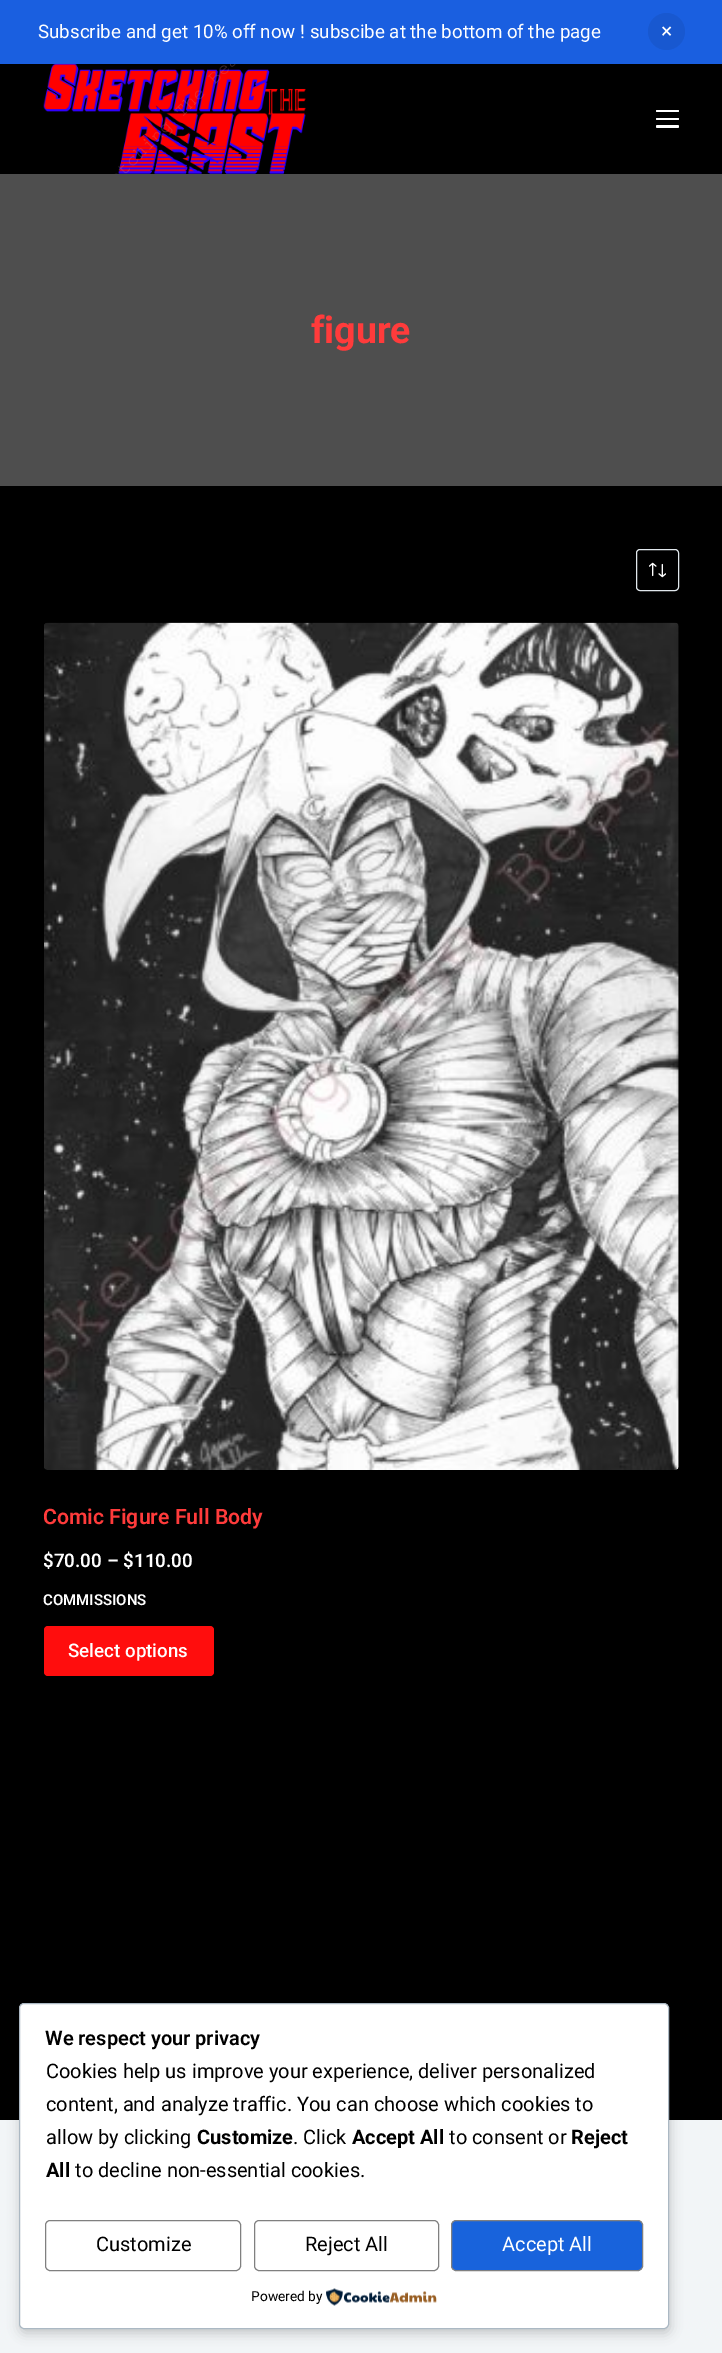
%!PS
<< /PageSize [722 2353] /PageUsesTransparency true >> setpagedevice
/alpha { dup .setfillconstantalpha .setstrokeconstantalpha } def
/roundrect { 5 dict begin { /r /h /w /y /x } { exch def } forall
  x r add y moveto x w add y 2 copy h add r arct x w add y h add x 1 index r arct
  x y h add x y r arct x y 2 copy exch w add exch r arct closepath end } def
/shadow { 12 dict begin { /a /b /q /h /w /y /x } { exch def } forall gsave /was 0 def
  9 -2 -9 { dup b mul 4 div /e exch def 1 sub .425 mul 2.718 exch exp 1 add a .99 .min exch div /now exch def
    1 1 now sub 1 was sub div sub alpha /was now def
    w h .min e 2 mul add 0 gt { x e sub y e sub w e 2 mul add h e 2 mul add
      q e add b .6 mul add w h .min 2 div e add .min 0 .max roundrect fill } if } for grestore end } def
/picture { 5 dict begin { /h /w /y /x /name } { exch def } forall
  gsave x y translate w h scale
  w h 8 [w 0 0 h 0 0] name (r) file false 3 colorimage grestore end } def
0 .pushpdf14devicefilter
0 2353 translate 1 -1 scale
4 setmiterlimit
0 setgray
0 0 722 2353 rectfill
0.102 0.373 0.878 setrgbcolor
0 0 722 64 rectfill
/Roboto-Regular [18.75 0 0 -18.75 0 0] selectfont
1 setgray
38 38 moveto (Subscribe and get 10% off now ! subscibe at the bottom of the page) show
0.094 0.345 0.816 setrgbcolor
newpath 666.5 31.5 18.5 0 360 arc closepath fill
/Roboto-Regular [21.25 0 0 -21.25 0 0] selectfont
1 setgray
661 38 moveto (×) show
(img1.rgb) 43 63 263 111 picture
656 110 23 2 1 roundrect fill
656 118 23 2 1 roundrect fill
656 125 23 3 1.5 roundrect fill
0.306 setgray
0 174 722 312 rectfill
/Roboto-Bold [37.5 0 0 -37.5 0 0] selectfont
1 0.231 0.231 setrgbcolor
311 343 moveto (figure) show
0.882 0.91 0.929 setrgbcolor
636.5 549.5 42 41 3.5 roundrect stroke
(img2.rgb) 649 562 17 16 picture
(img3.rgb) 44 622 635 848 picture
/Roboto-SemiBold [21.25 0 0 -21.25 0 0] selectfont
1 0.231 0.231 setrgbcolor
43 1524 moveto (Comic Figure Full Body) show
/Roboto-SemiBold [18.75 0 0 -18.75 0 0] selectfont
1 setgray
43 1567 moveto ($70.00 – $110.00) show
/Roboto-SemiBold [15 0 0 -15 0 0] selectfont
43 1605 moveto (COMMISSIONS) show
1 0.051 0.051 setrgbcolor
44 1626 170 50 4 roundrect fill
/Roboto-Medium [18.75 0 0 -18.75 0 0] selectfont
1 setgray
68 1657 moveto (Select options) show
0.949 0.961 0.969 setrgbcolor
0 2120 722 233 rectfill
0 setgray
20 2006 650 327 5 6 0.2 shadow
1 setgray
19.5 2003.5 649 325 4.5 roundrect gsave fill grestore
0.671 0.722 0.765 setrgbcolor
stroke
/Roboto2-SemiBold [20 0 0 -20 0 0] selectfont
0 setgray
45 2045 moveto (We respect your privacy) show
/Roboto-Regular [20 0 0 -20 0 0] selectfont
46 2078 moveto (Cookies help us improve your experience, deliver personalized) show
46 2111 moveto (content, and analyze traffic. You can choose which cookies to) show
46 2144 moveto (allow by clicking) show
/Roboto-Bold [20 0 0 -20 0 0] selectfont
197 2144 moveto (Customize) show
/Roboto-Regular [20 0 0 -20 0 0] selectfont
293 2144 moveto (. Click) show
/Roboto-Bold [20 0 0 -20 0 0] selectfont
352 2144 moveto (Accept All) show
/Roboto-Regular [20 0 0 -20 0 0] selectfont
449 2144 moveto (to consent or) show
/Roboto-Bold [20 0 0 -20 0 0] selectfont
571 2144 moveto (Reject) show
46 2177 moveto (All) show
/Roboto-Regular [20 0 0 -20 0 0] selectfont
75 2177 moveto (to decline non-essential cookies.) show
0.502 setgray
45.5 2220.5 195 50 4.5 roundrect stroke
0 setgray
96 2251 moveto (Customize) show
0.502 setgray
254.5 2220.5 184 50 4.5 roundrect stroke
0 setgray
305 2251 moveto (Reject All) show
0.094 0.388 0.863 setrgbcolor
451.5 2220.5 191 50 4.5 roundrect gsave fill grestore
0.502 setgray
stroke
1 setgray
502 2251 moveto (Accept All) show
/Roboto-Regular [13.75 0 0 -13.75 0 0] selectfont
0 setgray
251 2301 moveto (Powered by) show
(img4.rgb) 326 2288 111 18 picture
.poppdf14devicefilter showpage
